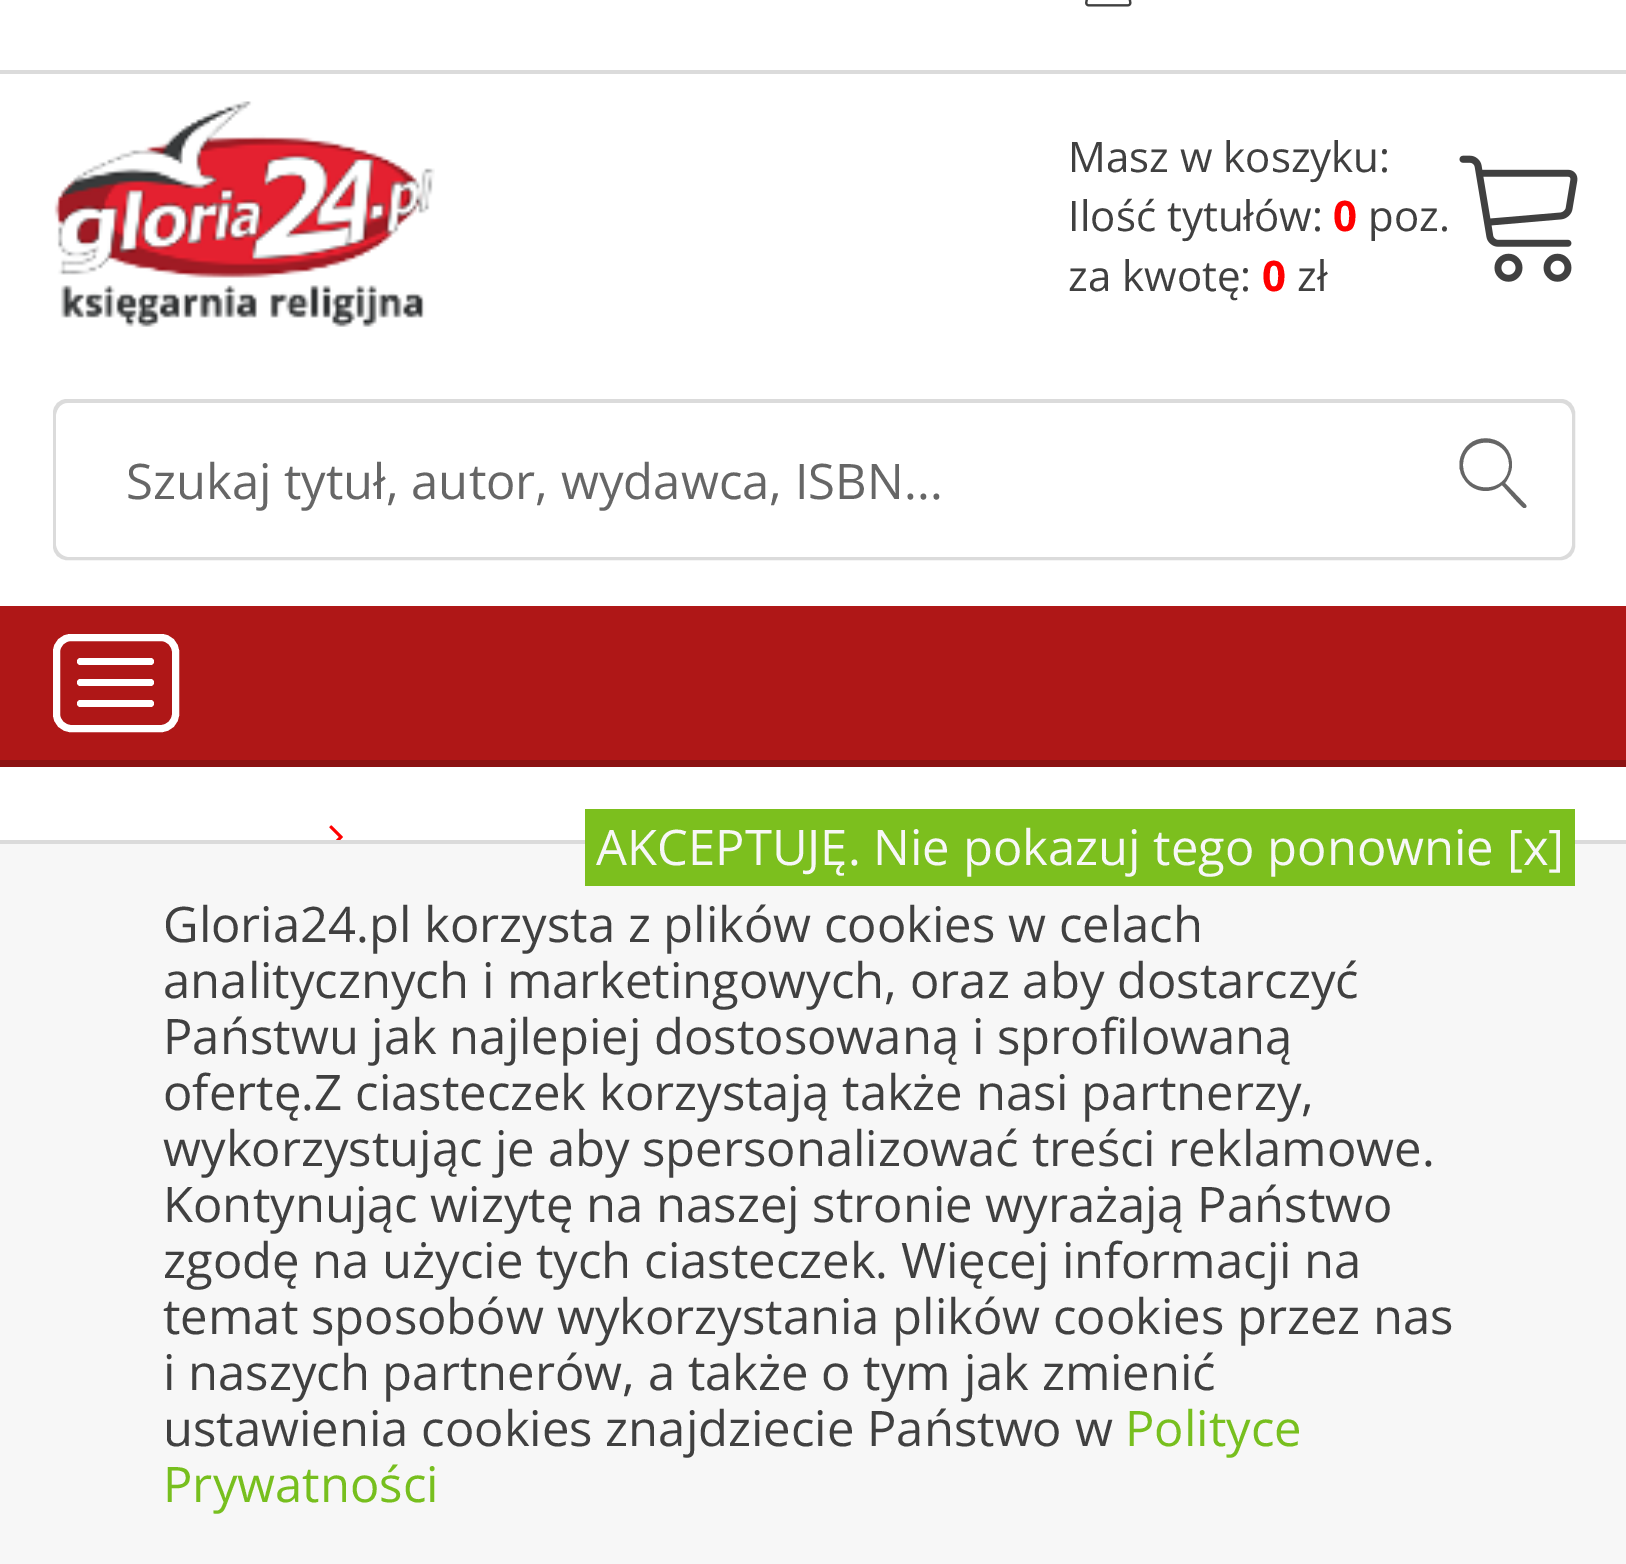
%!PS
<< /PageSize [1626 1564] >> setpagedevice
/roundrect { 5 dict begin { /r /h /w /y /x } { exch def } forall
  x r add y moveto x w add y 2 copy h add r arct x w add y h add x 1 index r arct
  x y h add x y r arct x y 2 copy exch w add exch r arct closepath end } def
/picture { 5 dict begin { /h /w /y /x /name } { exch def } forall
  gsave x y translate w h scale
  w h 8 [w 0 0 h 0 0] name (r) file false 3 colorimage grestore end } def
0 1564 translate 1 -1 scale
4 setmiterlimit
1 setgray
0 0 1626 1564 rectfill
0.859 setgray
0 70 1626 4 rectfill
(img1.rgb) 1085 0 47 7 picture
(img2.rgb) 54 101 381 226 picture
/OpenSans-Regular [42 0 0 -42 0 0] selectfont
0.251 setgray
1068 172 moveto (Masz w koszyku:) show
1068 231 moveto (Ilość tytułów:) show
/OpenSans-Bold [42 0 0 -42 0 0] selectfont
1 0 0 setrgbcolor
1333 231 moveto (0) show
/OpenSans-Regular [42 0 0 -42 0 0] selectfont
0.251 setgray
1368 231 moveto (poz.) show
1068 291 moveto (za kwotę:) show
/OpenSans-Bold [42 0 0 -42 0 0] selectfont
1 0 0 setrgbcolor
1262 291 moveto (0) show
/OpenSans-Regular [42 0 0 -42 0 0] selectfont
0.251 setgray
1297 291 moveto (zł) show
(img3.rgb) 1459 155 119 127 picture
0.859 setgray
4 setlinewidth
55 401 1518 157 12 roundrect stroke
1 setgray
56 403 1516 154 14 roundrect fill
/OpenSans-Regular [49 0 0 -49 0 0] selectfont
0.4 setgray
126 499 moveto (Szukaj tytuł, autor, wydawca, ISBN...) show
newpath 1526 505 moveto 1505 483 lineto 1509 478 1512 471 1512 465 curveto 1512 435 1471 428 1461 456 curveto 1458 464 1459 472 1464 479 curveto 1472 492 1490 495 1502 485 curveto 1505 488 1522 508 1524 508 curveto 1526 508 1527 507 1526 505 curveto closepath 1463 465 moveto 1463 435 1509 435 1509 465 curveto 1509 495 1463 495 1463 465 curveto closepath fill
0.686 0.09 0.09 setrgbcolor
0 606 1626 154 rectfill
1 setgray
7 setlinewidth
56.5 637.5 119 91 14.5 roundrect stroke
77 658 77 7 3.5 roundrect fill
77 679 77 7 3.5 roundrect fill
77 700 77 7 3.5 roundrect fill
0.549 0.071 0.071 setrgbcolor
0 760 1626 7 rectfill
(img4.rgb) 329 825 14 15 picture
0.969 setgray
0 844 1626 720 rectfill
0.859 setgray
0 840 1626 4 rectfill
0.486 0.749 0.118 setrgbcolor
585 809 990 77 rectfill
0.969 setgray
596 865 moveto (AKCEPTUJĘ. Nie pokazuj tego ponownie [x]) show
0.251 setgray
163 942 moveto (Gloria24.pl korzysta z plików cookies w celach) show
163 998 moveto (analitycznych i marketingowych, oraz aby dostarczyć) show
163 1054 moveto (Państwu jak najlepiej dostosowaną i sprofilowaną) show
163 1110 moveto (ofertę.Z ciasteczek korzystają także nasi partnerzy,) show
163 1166 moveto (wykorzystując je aby spersonalizować treści reklamowe.) show
163 1222 moveto (Kontynując wizytę na naszej stronie wyrażają Państwo) show
163 1278 moveto (zgodę na użycie tych ciasteczek. Więcej informacji na) show
163 1334 moveto (temat sposobów wykorzystania plików cookies przez nas) show
163 1390 moveto (i naszych partnerów, a także o tym jak zmienić) show
163 1446 moveto (ustawienia cookies znajdziecie Państwo w) show
0.467 0.749 0.118 setrgbcolor
1125 1446 moveto (Polityce) show
163 1502 moveto (Prywatności) show
showpage
